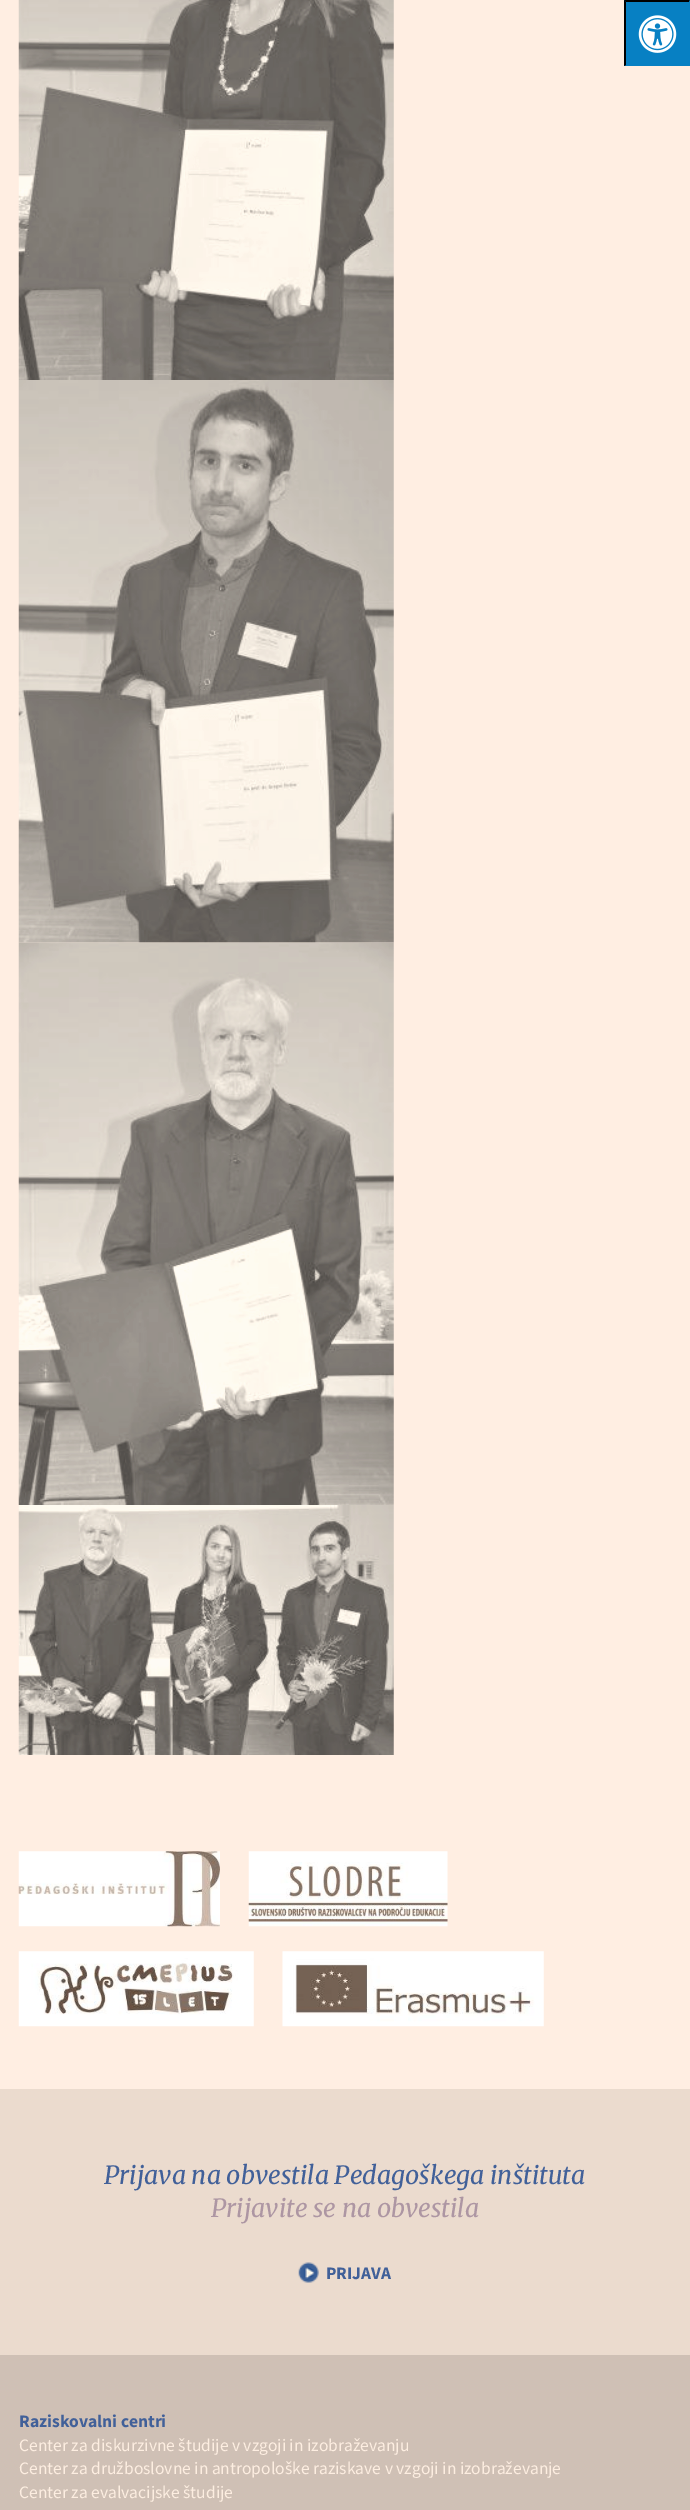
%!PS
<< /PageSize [690 2510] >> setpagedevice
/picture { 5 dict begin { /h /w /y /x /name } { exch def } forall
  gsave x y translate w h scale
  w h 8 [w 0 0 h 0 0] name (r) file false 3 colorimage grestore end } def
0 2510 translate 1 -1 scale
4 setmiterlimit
1 0.933 0.886 setrgbcolor
0 0 690 2510 rectfill
(img1.rgb) 18 0 376 380 picture
(img2.rgb) 18 380 376 563 picture
(img3.rgb) 18 942 376 563 picture
(img4.rgb) 18 1505 376 250 picture
0.027 0.502 0.765 setrgbcolor
624 0 66 66 rectfill
0 setgray
newpath 624 0 moveto 690 0 lineto 689 2 lineto 626 2 lineto closepath fill
0.027 0.502 0.765 setrgbcolor
newpath 690 0 moveto 690 66 lineto 689 65 lineto 689 2 lineto closepath fill
0 setgray
newpath 624 66 moveto 624 0 lineto 626 2 lineto 626 65 lineto closepath fill
(img5.rgb) 638 15 39 38 picture
(img6.rgb) 18 1851 202 76 picture
(img7.rgb) 248 1851 200 76 picture
(img8.rgb) 18 1951 236 76 picture
(img9.rgb) 282 1951 262 76 picture
0.922 0.859 0.808 setrgbcolor
0 2089 690 266 rectfill
/Merriweather-Italic [25 0 0 -25 0 0] selectfont
0.255 0.376 0.6 setrgbcolor
104 2184 moveto (Prijava na obvestila Pedagoškega inštituta) show
0.678 0.588 0.639 setrgbcolor
211 2217 moveto (Prijavite se na obvestila) show
(img10.rgb) 298 2262 21 21 picture
/SourceSansPro-Bold [17.5 0 0 -17.5 0 0] selectfont
0.255 0.376 0.6 setrgbcolor
326 2279 moveto (PRIJAVA) show
0.812 0.753 0.71 setrgbcolor
0 2355 690 155 rectfill
0.255 0.376 0.6 setrgbcolor
19 2427 moveto (Raziskovalni centri) show
/SourceSansPro-Regular [17.5 0 0 -17.5 0 0] selectfont
0.992 0.933 0.882 setrgbcolor
19 2451 moveto (Center za diskurzivne študije v vzgoji in izobraževanju) show
19 2474 moveto (Center za družboslovne in antropološke raziskave v vzgoji in izobraževanje) show
19 2498 moveto (Center za evalvacijske študije) show
showpage
